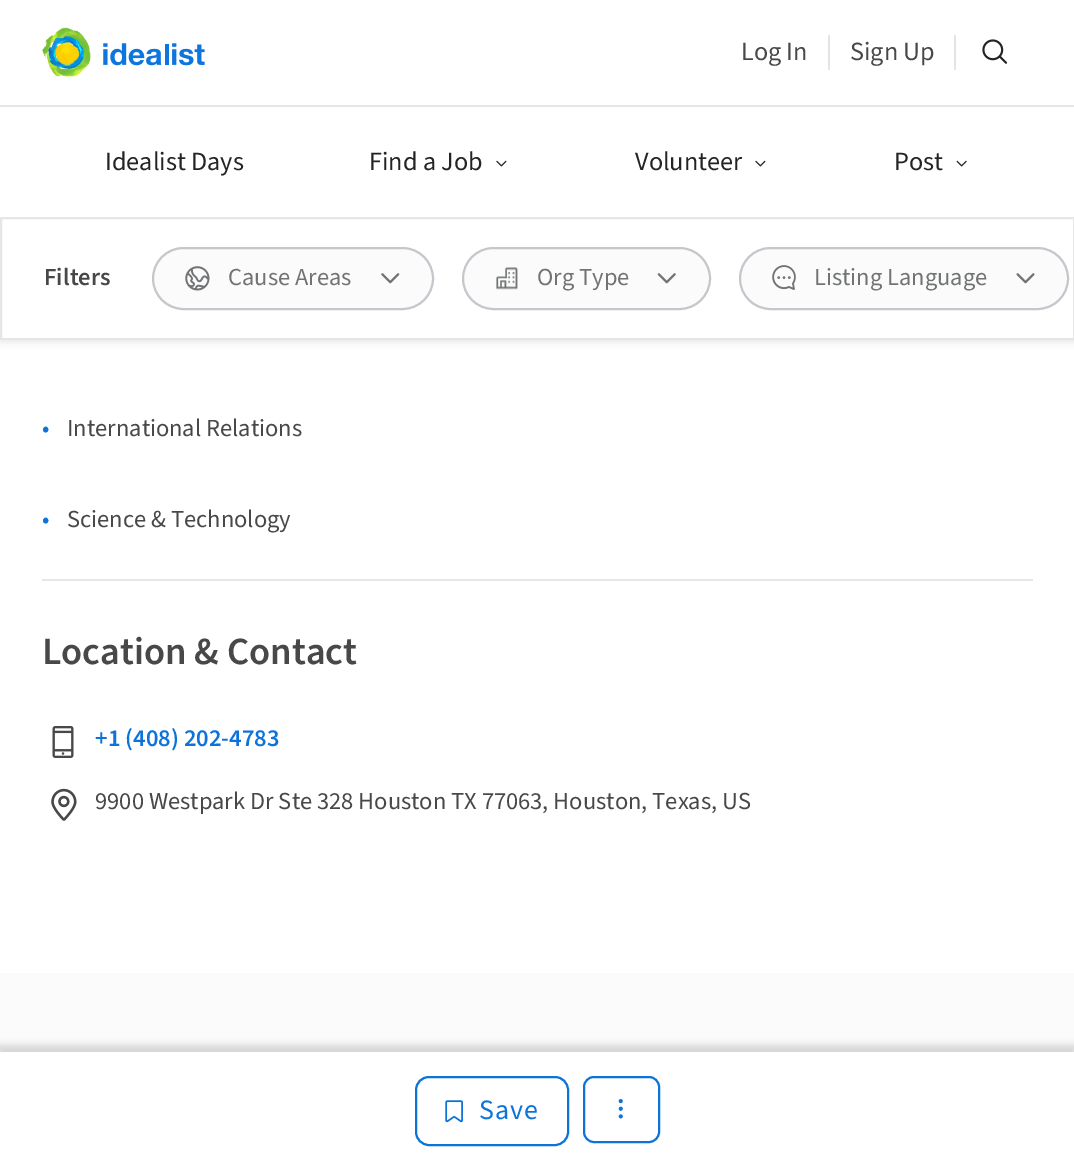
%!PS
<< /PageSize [1074 1169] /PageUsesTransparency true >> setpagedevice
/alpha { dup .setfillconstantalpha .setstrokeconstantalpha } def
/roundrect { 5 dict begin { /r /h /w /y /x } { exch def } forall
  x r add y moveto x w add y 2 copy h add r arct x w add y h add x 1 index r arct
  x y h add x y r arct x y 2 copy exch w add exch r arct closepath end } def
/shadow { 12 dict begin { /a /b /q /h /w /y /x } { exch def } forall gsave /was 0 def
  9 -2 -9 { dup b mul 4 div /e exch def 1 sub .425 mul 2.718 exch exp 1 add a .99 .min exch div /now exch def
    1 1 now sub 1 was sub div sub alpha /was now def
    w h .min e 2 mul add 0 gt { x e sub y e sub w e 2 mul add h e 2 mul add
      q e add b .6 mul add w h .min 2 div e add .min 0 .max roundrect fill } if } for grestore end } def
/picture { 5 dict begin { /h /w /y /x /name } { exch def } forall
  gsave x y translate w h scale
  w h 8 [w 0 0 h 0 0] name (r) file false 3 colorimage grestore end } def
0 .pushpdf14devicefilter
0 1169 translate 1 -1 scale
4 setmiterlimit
1 setgray
0 0 1074 1169 rectfill
0 setgray
0 4 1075 339 0 3.5 0.07 shadow
1 setgray
0 0 1074 338 rectfill
/SourceSans3-Regular [26.25 0 0 -26.25 0 0] selectfont
0.282 setgray
741 60 moveto (Log In) show
0.886 0.894 0.902 setrgbcolor
828 35 2 35 rectfill
0.282 setgray
850 60 moveto (Sign Up) show
0.886 0.894 0.902 setrgbcolor
954 35 2 35 rectfill
(img1.rgb) 982 39 26 25 picture
(img2.rgb) 42 27 49 50 picture
(img3.rgb) 103 43 102 23 picture
0.902 setgray
0 105 1074 2 rectfill
0.141 setgray
105 170 moveto (Idealist Days) show
369 170 moveto (Find a Job) show
(img4.rgb) 496 160 11 7 picture
635 170 moveto (Volunteer) show
(img4.rgb) 755 160 11 7 picture
894 170 moveto (Post) show
(img5.rgb) 956 160 11 7 picture
0.902 setgray
2 setlinewidth
1 218 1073 121 rectstroke
/SourceSans3-SemiBold [24.5 0 0 -24.5 0 0] selectfont
0.282 setgray
44 285 moveto (Filters) show
0.984 setgray
153 248 280 61 30.5 roundrect gsave fill grestore
0.769 0.784 0.8 setrgbcolor
stroke
(img6.rgb) 185 266 25 25 picture
/SourceSans3-Regular [24.5 0 0 -24.5 0 0] selectfont
0.443 0.451 0.459 setrgbcolor
228 285 moveto (Cause Areas) show
(img7.rgb) 381 273 19 11 picture
0.984 setgray
463 248 247 61 30.5 roundrect gsave fill grestore
0.769 0.784 0.8 setrgbcolor
stroke
(img8.rgb) 496 267 22 23 picture
0.443 0.451 0.459 setrgbcolor
537 285 moveto (Org Type) show
(img9.rgb) 657 273 19 11 picture
0.984 setgray
740 248 328 61 30.5 roundrect gsave fill grestore
0.769 0.784 0.8 setrgbcolor
stroke
(img10.rgb) 772 265 24 25 picture
0.443 0.451 0.459 setrgbcolor
814 285 moveto (Listing Language) show
(img11.rgb) 1016 273 19 11 picture
0.051 0.451 0.851 setrgbcolor
42 436 moveto (•) show
0.282 setgray
67 436 moveto (International Relations) show
0.051 0.451 0.851 setrgbcolor
42 527 moveto (•) show
0.282 setgray
67 527 moveto (Science & Technology) show
0.902 setgray
42 579 991 2 rectfill
/SourceSans3-SemiBold [38.5 0 0 -38.5 0 0] selectfont
0.282 setgray
42 664 moveto (Location & Contact) show
(img12.rgb) 52 726 22 32 picture
/SourceSans3-SemiBold [24.5 0 0 -24.5 0 0] selectfont
0.051 0.451 0.851 setrgbcolor
95 746 moveto (+1 \(408\) 202-4783) show
(img13.rgb) 51 788 26 33 picture
/SourceSans3-Regular [24.5 0 0 -24.5 0 0] selectfont
0.282 setgray
95 809 moveto (9900 Westpark Dr Ste 328 Houston TX 77063, Houston, Texas, US) show
0.984 setgray
0 973 1074 79 rectfill
0 setgray
-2 1045 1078 121 0 3.5 0.15 shadow
1 setgray
0 1052 1074 117 rectfill
0.051 0.451 0.851 setrgbcolor
416 1077 152 68 13 roundrect stroke
(img14.rgb) 445 1100 18 23 picture
/SourceSans3-Regular [28 0 0 -28 0 0] selectfont
479 1119 moveto 1 0 (Save) ashow
584 1077 75 65 10 roundrect stroke
(img15.rgb) 618 1099 5 20 picture
.poppdf14devicefilter showpage
